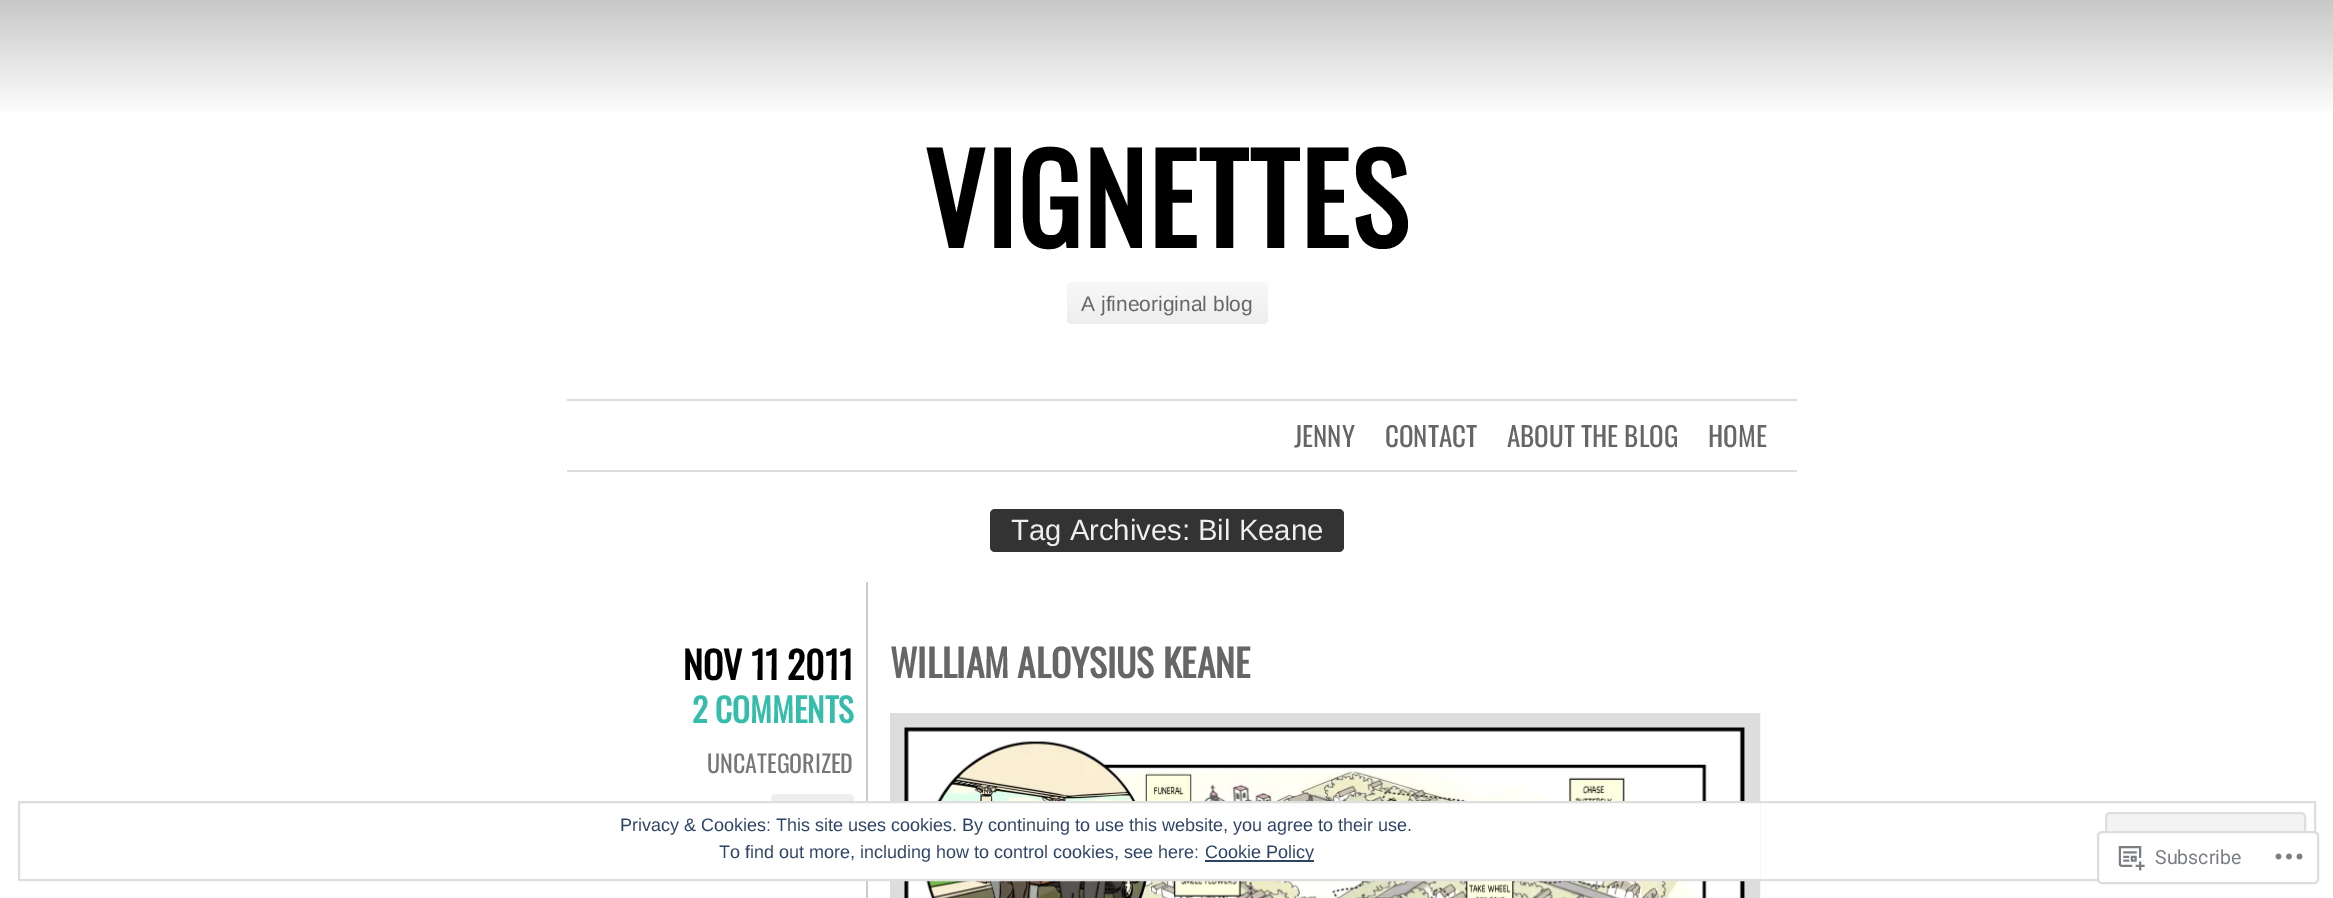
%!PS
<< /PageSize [2333 898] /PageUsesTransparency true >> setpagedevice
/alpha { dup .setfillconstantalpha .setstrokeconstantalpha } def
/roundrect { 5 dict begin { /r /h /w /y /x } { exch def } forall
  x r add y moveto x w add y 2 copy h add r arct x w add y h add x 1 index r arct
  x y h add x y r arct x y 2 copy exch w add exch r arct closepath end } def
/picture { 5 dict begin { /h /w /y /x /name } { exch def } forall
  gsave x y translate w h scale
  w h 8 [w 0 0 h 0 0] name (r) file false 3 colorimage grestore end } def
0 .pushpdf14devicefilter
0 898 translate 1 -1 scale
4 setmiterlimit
1 setgray
0 0 2333 898 rectfill
gsave newpath 0 0 moveto 2333 0 lineto 2333 112 lineto 0 112 lineto closepath clip newpath
<< /ShadingType 2 /ColorSpace /DeviceRGB /Coords [1167 0 1167 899] /Extend [true true] /Function << /FunctionType 3 /Domain [0 1] /Functions [<< /FunctionType 2 /Domain [0 1] /C0 [0.784 0.784 0.784] /C1 [1 1 1] /N 1 >> << /FunctionType 2 /Domain [0 1] /C0 [1 1 1] /C1 [1 1 1] /N 1 >>] /Bounds [0.13] /Encode [0 1 0 1] >> >> shfill grestore
/Oswald-Bold [120 0 0 -120 0 0] selectfont
0 setgray
924 248 moveto 1.5 0 (VIGNETTES) ashow
gsave 1067 282 201 42 5 roundrect clip newpath
<< /ShadingType 2 /ColorSpace /DeviceRGB /Coords [1167 282 1167 324] /Extend [true true] /Function << /FunctionType 2 /Domain [0 1] /C0 [0.973 0.973 0.973] /C1 [0.933 0.933 0.933] /N 1 >> >> shfill grestore
/LiberationSans-Regular [21 0 0 -21 0 0] selectfont
0.4 setgray
1081 311 moveto (A jfineoriginal blog) show
0.867 setgray
567 399 1230 2 rectfill
567 470 1230 2 rectfill
/Oswald-Regular [27 0 0 -27 0 0] selectfont
0.4 setgray
1294 447 moveto (JENNY) show
1385 447 moveto (CONTACT) show
1507 447 moveto (ABOUT THE BLOG) show
1708 447 moveto (HOME) show
0.2 setgray
990 509 354 43 5 roundrect fill
/LiberationSans-Regular [29.25 0 0 -29.25 0 0] selectfont
0.933 setgray
1011 540 moveto (Tag Archives: Bil Keane) show
0.8 setgray
866 582 2 316 rectfill
/Oswald-Bold [37.5 0 0 -37.5 0 0] selectfont
0 setgray
683 680 moveto (NOV 11 2011) show
/Oswald-Bold [33 0 0 -33 0 0] selectfont
0.212 0.737 0.671 setrgbcolor
692 723 moveto (2 COMMENTS) show
/Oswald-Regular [24 0 0 -24 0 0] selectfont
0.467 setgray
707 773 moveto (UNCATEGORIZED) show
0.933 setgray
771 794 83 36 5 roundrect fill
/Oswald-Bold [37.5 0 0 -37.5 0 0] selectfont
0.4 setgray
890 678 moveto (WILLIAM ALOYSIUS KEANE) show
0.867 setgray
15 setlinewidth
897.5 720.5 855 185 rectstroke
(img1.rgb) 904 727 841 171 picture
1 setgray
771 803 989 76 rectfill
0.871 setgray
2 setlinewidth
19 802 2296 78 rectstroke
/LiberationSans-Regular [18 0 0 -18 0 0] selectfont
0.18 0.267 0.404 setrgbcolor
620 831 moveto (Privacy & Cookies: This site uses cookies. By continuing to use this website, you agree to their use.) show
0.953 setgray
2106 813 199 56 4 roundrect gsave fill grestore
0.871 setgray
stroke
0.18 0.267 0.404 setrgbcolor
719 858 moveto (To find out more, including how to control cookies, see here:) show
1205 860 109 2 rectfill
1205 858 moveto (Cookie Policy) show
0.98 alpha
1 setgray
2097 831 222 53 5 roundrect fill
0.863 0.863 0.871 setrgbcolor
2098 832 220 51 4 roundrect stroke
1 alpha
(img2.rgb) 2118 846 27 25 picture
/Roboto-Regular [19.5 0 0 -19.5 0 0] selectfont
0.478 0.494 0.518 setrgbcolor
2155 864 moveto (Subscribe) show
(img3.rgb) 2275 853 28 7 picture
.poppdf14devicefilter showpage
